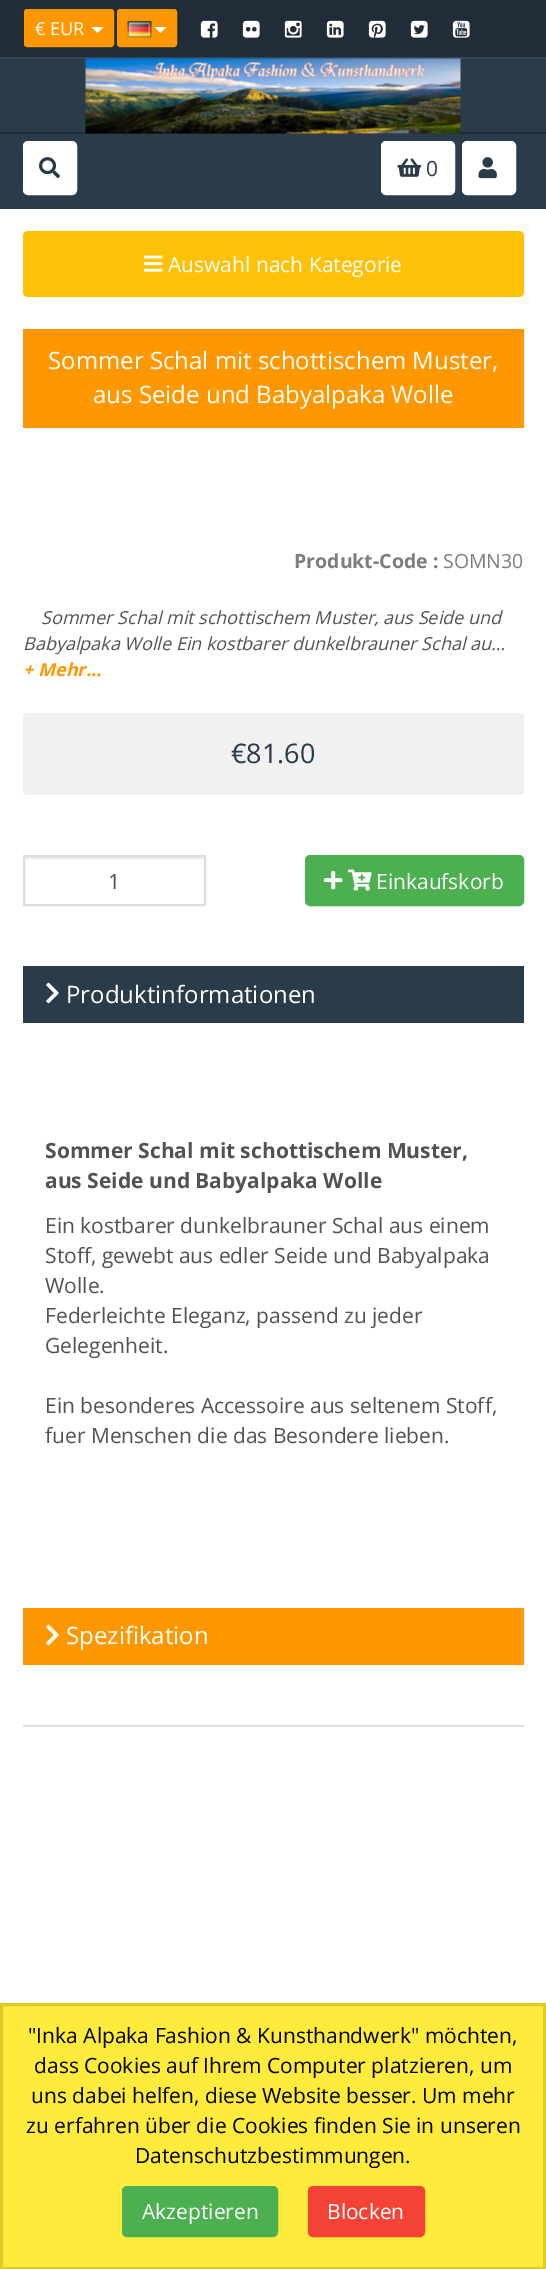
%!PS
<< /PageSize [546 2269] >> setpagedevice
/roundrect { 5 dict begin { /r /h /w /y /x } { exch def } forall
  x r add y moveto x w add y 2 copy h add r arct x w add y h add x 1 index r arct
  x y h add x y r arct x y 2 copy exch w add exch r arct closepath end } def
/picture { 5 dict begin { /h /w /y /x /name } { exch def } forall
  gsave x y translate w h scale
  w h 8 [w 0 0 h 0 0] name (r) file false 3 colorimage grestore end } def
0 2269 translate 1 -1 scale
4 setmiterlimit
1 setgray
0 0 546 2269 rectfill
0.165 0.231 0.29 setrgbcolor
0 59 546 150 rectfill
0.125 0.173 0.22 setrgbcolor
0 0 546 57 rectfill
0.208 0.282 0.345 setrgbcolor
0 57 546 2 rectfill
1 0.596 0 setrgbcolor
25 10 88 36 2 roundrect gsave fill grestore
2 setlinewidth
stroke
/OpenSans-Regular [18 0 0 -18 0 0] selectfont
1 setgray
35 35 moveto (€ EUR) show
newpath 91.5 27 moveto 103.5 27 lineto 97.5 33 lineto closepath fill
1 0.596 0 setrgbcolor
118 10 58 36 2 roundrect gsave fill grestore
stroke
(img1.rgb) 127 21 25 17 picture
1 setgray
newpath 154.5 27 moveto 166.5 27 lineto 160.5 33 lineto closepath fill
(img2.rgb) 200 20 18 18 picture
(img3.rgb) 242 20 18 18 picture
(img4.rgb) 284 20 18 18 picture
(img5.rgb) 326 20 18 18 picture
(img6.rgb) 368 20 18 18 picture
(img7.rgb) 410 20 18 18 picture
(img8.rgb) 452 20 18 18 picture
0.125 0.173 0.22 setrgbcolor
0 132 546 2 rectfill
(img9.rgb) 85 58 376 76 picture
1 setgray
24 142 52 52 4 roundrect gsave fill grestore
stroke
(img10.rgb) 39 157 21 22 picture
382 142 72 52 4 roundrect gsave fill grestore
stroke
(img11.rgb) 397 158 25 19 picture
/OpenSans-Regular [21 0 0 -21 0 0] selectfont
0.165 0.231 0.29 setrgbcolor
426 176 moveto (0) show
1 setgray
463 142 52 52 4 roundrect gsave fill grestore
stroke
(img12.rgb) 478 157 19 22 picture
1 0.757 0.027 setrgbcolor
23 231 501 66 5 roundrect fill
(img13.rgb) 144 255 19 17 picture
1 setgray
168 272 moveto (Auswahl nach Kategorie) show
1 0.596 0 setrgbcolor
23 329 501 99 rectfill
/OpenSans-Regular [24 0 0 -24 0 0] selectfont
1 setgray
48 369 moveto (Sommer Schal mit schottischem Muster,) show
93 403 moveto (aus Seide und Babyalpaka Wolle) show
/OpenSans-Bold [19.5 0 0 -19.5 0 0] selectfont
0.49 setgray
294 568 moveto (Produkt-Code :) show
/OpenSans-Regular [19.5 0 0 -19.5 0 0] selectfont
443 568 moveto (SOMN30) show
/OpenSans-Italic [18 0 0 -18 0 0] selectfont
0.322 setgray
41 624 moveto (Sommer Schal mit schottischem Muster, aus Seide und) show
23 650 moveto (Babyalpaka Wolle Ein kostbarer dunkelbrauner Schal au…) show
/OpenSans-BoldItalic [18 0 0 -18 0 0] selectfont
1 0.596 0 setrgbcolor
23 676 moveto (+ Mehr...) show
0.945 setgray
newpath 26 713 moveto 521 713 lineto 522.5 713 524 714.5 524 716 curveto 524 792 lineto 524 793.5 522.5 795 521 795 curveto 28 795 lineto 25 795 23 793 23 790 curveto 23 716 lineto 23 714.5 24.5 713 26 713 curveto closepath fill
/OpenSans-Regular [27 0 0 -27 0 0] selectfont
0.165 0.231 0.29 setrgbcolor
231 763 moveto (€81.60) show
0.925 setgray
24 857 180 2 rectfill
0.867 setgray
24 856 181 49 0.5 roundrect stroke
/OpenSans-Regular [21 0 0 -21 0 0] selectfont
0.322 setgray
108 889 moveto (1) show
0.298 0.686 0.314 setrgbcolor
306 856 217 49 4 roundrect gsave fill grestore
stroke
(img14.rgb) 324 870 19 20 picture
(img15.rgb) 348 869 24 22 picture
1 setgray
376 889 moveto (Einkaufskorb) show
0.165 0.231 0.29 setrgbcolor
23 966 501 57 rectfill
(img16.rgb) 46 982 13 22 picture
/OpenSans-Regular [24 0 0 -24 0 0] selectfont
1 setgray
66 1003 moveto (Produktinformationen) show
/OpenSans-Bold [21 0 0 -21 0 0] selectfont
0.322 setgray
45 1158 moveto (Sommer Schal mit schottischem Muster,) show
45 1188 moveto (aus Seide und Babyalpaka Wolle) show
/OpenSans-Regular [21 0 0 -21 0 0] selectfont
45 1233 moveto (Ein kostbarer dunkelbrauner Schal aus einem) show
45 1263 moveto (Stoff, gewebt aus edler Seide und Babyalpaka) show
45 1293 moveto (Wolle.) show
45 1323 moveto (Federleichte Eleganz, passend zu jeder) show
45 1353 moveto (Gelegenheit.) show
45 1413 moveto (Ein besonderes Accessoire aus seltenem Stoff,) show
45 1443 moveto (fuer Menschen die das Besondere lieben.) show
1 0.596 0 setrgbcolor
23 1608 501 57 rectfill
(img17.rgb) 46 1624 13 22 picture
/OpenSans-Regular [24 0 0 -24 0 0] selectfont
1 setgray
66 1644 moveto (Spezifikation) show
0.867 setgray
23 1725 501 2 rectfill
1 0.922 0.231 setrgbcolor
newpath 1.5 2004.5 moveto 544.5 2004.5 lineto 544.5 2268.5 lineto 1.5 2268.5 lineto closepath gsave fill grestore
0.871 0.796 0.149 setrgbcolor
3 setlinewidth
stroke
/OpenSans-Regular [21 0 0 -21 0 0] selectfont
0 setgray
28 2043 moveto ("Inka Alpaka Fashion & Kunsthandwerk" möchten,) show
34 2073 moveto (dass Cookies auf Ihrem Computer platzieren, um) show
31 2103 moveto (uns dabei helfen, diese Website besser. Um mehr) show
26 2133 moveto (zu erfahren über die Cookies finden Sie in unseren) show
135 2163 moveto (Datenschutzbestimmungen.) show
0.298 0.686 0.314 setrgbcolor
123 2187 154 49 4 roundrect gsave fill grestore
2 setlinewidth
stroke
1 setgray
142 2219 moveto (Akzeptieren) show
0.957 0.263 0.212 setrgbcolor
309 2187 115 49 4 roundrect gsave fill grestore
stroke
1 setgray
327 2219 moveto (Blocken) show
showpage
